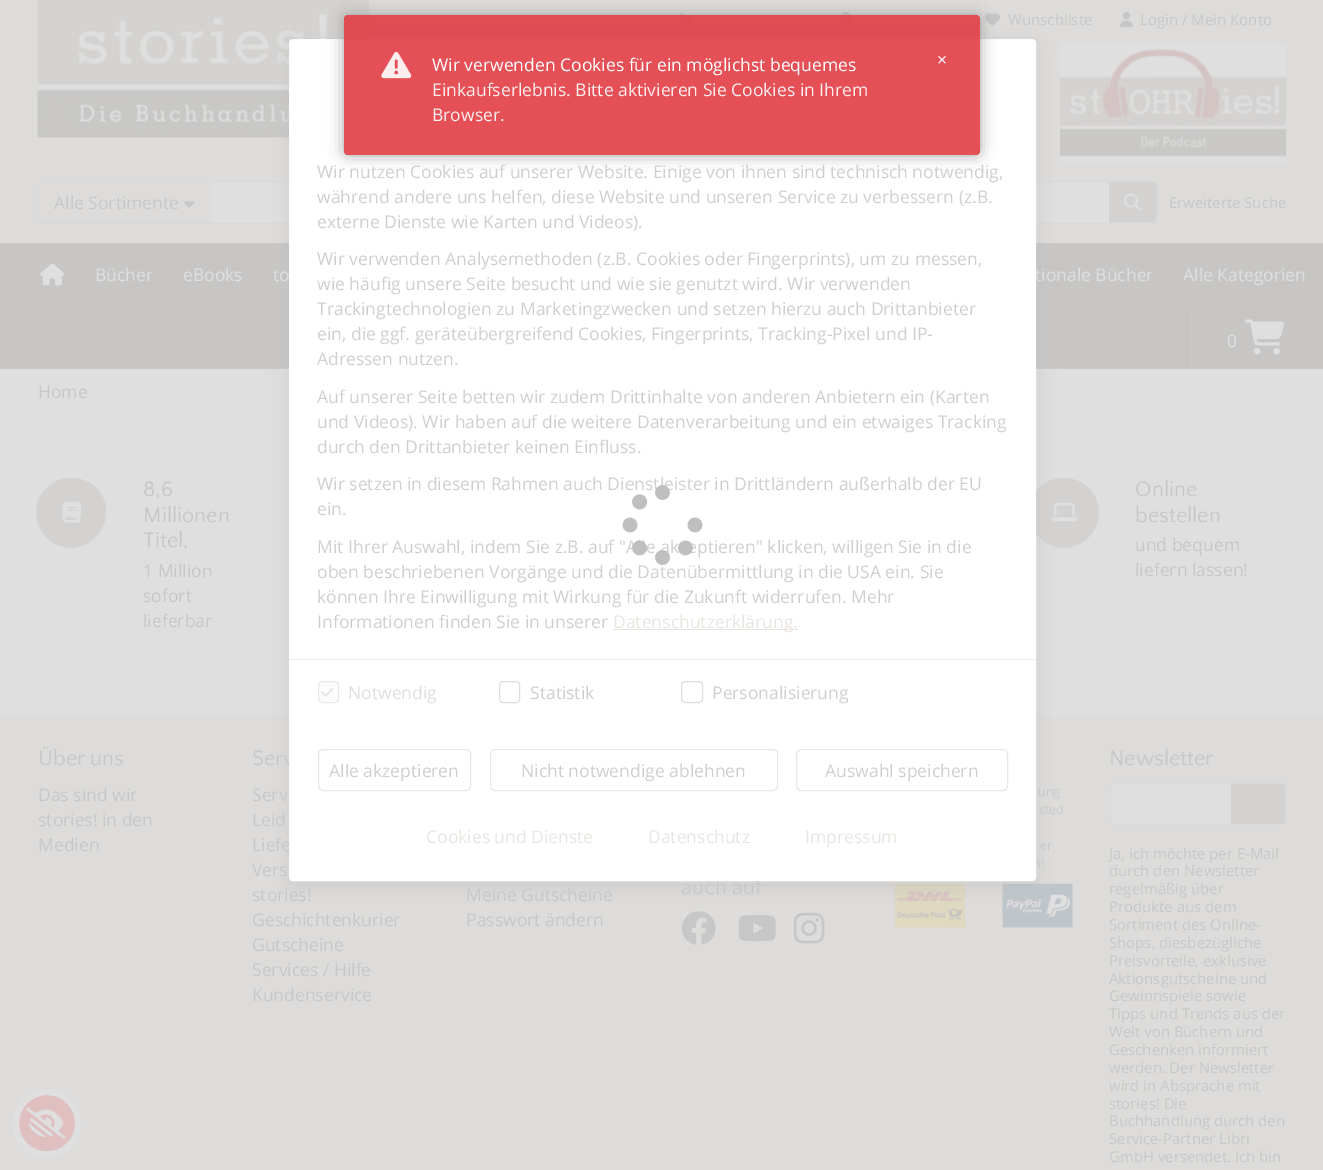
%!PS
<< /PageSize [1323 1170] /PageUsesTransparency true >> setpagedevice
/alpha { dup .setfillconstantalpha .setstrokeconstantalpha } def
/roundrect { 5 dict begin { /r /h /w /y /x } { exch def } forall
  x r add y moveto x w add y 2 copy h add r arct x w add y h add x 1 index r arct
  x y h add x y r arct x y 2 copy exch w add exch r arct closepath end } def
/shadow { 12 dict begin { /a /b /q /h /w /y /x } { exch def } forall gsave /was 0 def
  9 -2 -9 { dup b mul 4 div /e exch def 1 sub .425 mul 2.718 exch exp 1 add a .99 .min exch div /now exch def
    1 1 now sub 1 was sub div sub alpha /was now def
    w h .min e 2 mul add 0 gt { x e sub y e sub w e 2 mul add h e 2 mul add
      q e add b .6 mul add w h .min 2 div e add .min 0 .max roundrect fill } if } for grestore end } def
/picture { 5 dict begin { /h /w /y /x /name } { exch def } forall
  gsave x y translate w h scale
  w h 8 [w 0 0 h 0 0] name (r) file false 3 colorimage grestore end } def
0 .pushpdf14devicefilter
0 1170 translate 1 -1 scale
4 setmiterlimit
0.875 setgray
0 0 1323 1170 rectfill
0.867 0.863 0.859 setrgbcolor
0 0 1323 243 rectfill
(img1.rgb) 37 0 332 138 picture
(img2.rgb) 680 12 15 15 picture
(img3.rgb) 840 11 12 16 picture
(img4.rgb) 985 13 15 13 picture
/OpenSans-Regular [15 0 0 -15 0 0] selectfont
0.78 setgray
1008 25 moveto (Wunschliste) show
(img5.rgb) 1120 11 14 16 picture
1140 25 moveto (Login / Mein Konto) show
(img6.rgb) 1060 44 227 119 picture
0.851 setgray
newpath 42 182 moveto 41 182 40 183 40 183 curveto 39 183 lineto 41 181 lineto 211 181 lineto 210 182 lineto closepath fill
newpath 41 224 moveto 39 222 lineto 40 221 lineto 42 222 lineto 210 222 lineto 211 224 lineto closepath fill
newpath 39 222.5 moveto 38.5 221.5 38 220.5 38 219 curveto 38 186 lineto 38 184.5 38.5 183.5 39 182.5 curveto 39.5 183.5 lineto 38.5 185.5 39 190 39 191.5 curveto 39 220 lineto 40 221.5 lineto closepath fill
/OpenSans-Regular [17.5 0 0 -17.5 0 0] selectfont
0.78 setgray
54 209 moveto (Alle Sortimente) show
(img7.rgb) 183 201 12 7 picture
0.875 setgray
211 182 898 41 rectfill
0.851 setgray
210 181 900 1 rectfill
210 223 900 1 rectfill
210 181 1 43 rectfill
0.831 0.824 0.816 setrgbcolor
newpath 1109 181 moveto 1153 181 lineto 1156 181 1158 183 1158 186 curveto 1158 219 lineto 1158 222 1156 224 1153 224 curveto 1109 224 lineto closepath fill
0.851 setgray
newpath 1109 181 moveto 1152 181 lineto 1155 181 1158 183 1158 186 curveto 1158 219 lineto 1158 222 1155 224 1152 224 curveto 1109 224 lineto closepath 1109 182 moveto 1152 182 lineto 1155 182 1156 184 1156 186 curveto 1156 219 lineto 1156 221 1155 222 1152 222 curveto 1109 222 lineto closepath eofill
(img8.rgb) 1123 193 19 18 picture
/OpenSans-Regular [14.9 0 0 -14.9 0 0] selectfont
0.78 setgray
1169 208 moveto (Erweiterte Suche) show
0.78 0.776 0.773 setrgbcolor
0 244 1323 124 rectfill
0.788 0.784 0.78 setrgbcolor
0 243 1323 1 rectfill
0 368 1323 1 rectfill
0.859 setgray
0 458 294 1 rectfill
1036 458 250 1 rectfill
0.831 0.824 0.816 setrgbcolor
newpath 1064 548 moveto 1097 547 1112 505 1085 485 curveto 1079 480 1071 478 1064 478 curveto 1056 478 1049 480 1042 485 curveto 1016 505 1031 547 1064 548 curveto closepath fill
(img14.rgb) 1051 502 27 20 picture
0.867 0.863 0.859 setrgbcolor
0 715 1323 455 rectfill
(img15.rgb) 895 883 70 45 picture
(img16.rgb) 1002 883 71 45 picture
(img17.rgb) 681 911 35 34 picture
(img18.rgb) 738 915 38 27 picture
(img19.rgb) 793 912 32 32 picture
gsave
newpath 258 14 moveto 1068 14 lineto 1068 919 lineto 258 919 lineto closepath 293 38 moveto 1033 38 lineto 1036 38 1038 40 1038 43 curveto 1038 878 lineto 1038 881 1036 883 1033 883 curveto 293 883 lineto 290 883 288 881 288 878 curveto 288 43 lineto 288 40 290 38 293 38 curveto closepath eoclip newpath
0.749 setgray
288 44 750 845 5 9.5 0.5 shadow
grestore
/OpenSans-Regular [17.5 0 0 -17.5 0 0] selectfont
0.875 setgray
1035 281 moveto (tionale Bücher) show
/QuattrocentoSans-Regular [22 0 0 -22 0 0] selectfont
0.78 setgray
252 765 moveto (Serv) show
/OpenSans-Regular [17.5 0 0 -17.5 0 0] selectfont
252 851 moveto (Liefe) show
/OpenSans-Regular [12.5 0 0 -12.5 0 0] selectfont
1033 868 moveto (n!) show
/QuattrocentoSans-Regular [22 0 0 -22 0 0] selectfont
681 894 moveto (auch auf) show
1 setgray
289 39 747 842 4 roundrect fill
/OpenSans-Regular [17.5 0 0 -17.5 0 0] selectfont
0.875 setgray
273 281 moveto (to) show
0.2 alpha
0.749 setgray
288.5 38.5 749 844 4.5 roundrect stroke
gsave
newpath 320 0 moveto 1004 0 lineto 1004 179 lineto 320 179 lineto closepath 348 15 moveto 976 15 lineto 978 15 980 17 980 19 curveto 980 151 lineto 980 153 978 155 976 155 curveto 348 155 lineto 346 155 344 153 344 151 curveto 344 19 lineto 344 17 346 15 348 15 curveto closepath eoclip newpath
1 alpha
0.6 setgray
344 15 636 140 4 7.5 0.9 shadow
grestore
0.9 alpha
0.886 0.239 0.271 setrgbcolor
344 15 636 140 4 roundrect fill
1 alpha
(img9.rgb) 381 51 31 28 picture
1 setgray
432 71 moveto (Wir verwenden Cookies für ein möglichst bequemes) show
0.988 0.933 0.933 setrgbcolor
432 96 moveto (Einkaufserlebnis. Bitte aktivieren Sie Cookies in Ihrem) show
432 121 moveto (Browser.) show
1 setgray
937 66 moveto (×) show
0.812 setgray
317 178 moveto (Wir nutzen Cookies auf unserer Website. Einige von ihnen sind technisch notwendig,) show
317 203 moveto (während andere uns helfen, diese Website und unseren Service zu verbessern \(z.B.) show
317 228 moveto (externe Dienste wie Karten und Videos\).) show
317 265 moveto (Wir verwenden Analysemethoden \(z.B. Cookies oder Fingerprints\), um zu messen,) show
317 290 moveto (wie häufig unsere Seite besucht und wie sie genutzt wird. Wir verwenden) show
317 315 moveto (Trackingtechnologien zu Marketingzwecken und setzen hierzu auch Drittanbieter) show
317 340 moveto (ein, die ggf. geräteübergreifend Cookies, Fingerprints, Tracking-Pixel und IP-) show
317 365 moveto (Adressen nutzen.) show
317 403 moveto (Auf unserer Seite betten wir zudem Drittinhalte von anderen Anbietern ein \(Karten) show
317 428 moveto (und Videos\). Wir haben auf die weitere Datenverarbeitung und ein etwaiges Tracking) show
317 453 moveto (durch den Drittanbieter keinen Einfluss.) show
317 490 moveto (Wir setzen in diesem Rahmen auch Dienstleister in Drittländern außerhalb der EU) show
317 515 moveto (ein.) show
317 553 moveto (Mit Ihrer Auswahl, indem Sie z.B. auf ") show
646 553 moveto (e ak) show
697 553 moveto (ptieren" klicken, willigen Sie in die) show
317 578 moveto (oben beschriebenen Vorgänge und die Datenübermittlung in die USA ein. Sie) show
317 603 moveto (können Ihre Einwilligung mit Wirkung für die Zukunft widerrufen. Mehr) show
317 628 moveto (Informationen finden Sie in unserer) show
0.914 0.898 0.882 setrgbcolor
613 629 185 1 rectfill
613 628 moveto (Datenschutzerklärung.) show
0.933 setgray
289 659 747 1 rectfill
0.988 setgray
318.5 681.5 20 21 3.5 roundrect gsave fill grestore
0.914 setgray
stroke
0.875 setgray
348 699 moveto (Notwendig) show
(img10.rgb) 321 688 13 9 picture
0.867 setgray
499.5 681.5 20 21 3.5 roundrect stroke
0.812 setgray
530 699 moveto (Statistik) show
0.867 setgray
681.5 681.5 21 21 3.5 roundrect stroke
0.812 setgray
712 699 moveto (Personalisierung) show
0.906 setgray
318.5 749.5 152 41 4.5 roundrect stroke
0.812 setgray
329 777 moveto (Alle akzeptieren) show
0.906 setgray
490.5 749.5 287 41 4.5 roundrect stroke
0.812 setgray
521 777 moveto (Nicht notwendige ablehnen) show
0.906 setgray
796.5 749.5 211 41 4.5 roundrect stroke
0.812 setgray
825 777 moveto (Auswahl speichern) show
0.914 0.898 0.882 setrgbcolor
426 843 moveto (Cookies und Dienste) show
648 843 moveto (Datenschutz) show
805 843 moveto (Impressum) show
(img11.rgb) 40 263 25 23 picture
0.875 setgray
95 281 moveto (Bücher) show
183 281 moveto (eBooks) show
1183 281 moveto (Alle Kategorien) show
0.796 0.792 0.784 setrgbcolor
1191 306 1 62 rectfill
0.875 setgray
1227 347 moveto (0) show
(img12.rgb) 1245 319 39 36 picture
0.78 setgray
38 398 moveto (Home) show
0.831 0.824 0.816 setrgbcolor
newpath 71 548 moveto 104 547 119 505 93 485 curveto 86 480 79 478 71 478 curveto 64 478 56 480 50 485 curveto 23 505 38 547 71 548 curveto closepath fill
(img13.rgb) 62 501 19 22 picture
/QuattrocentoSans-Regular [22 0 0 -22 0 0] selectfont
0.78 setgray
143 496 moveto (8,6) show
143 522 moveto (Millionen) show
143 547 moveto (Titel,) show
/OpenSans-Regular [17.5 0 0 -17.5 0 0] selectfont
143 577 moveto (1 Million) show
143 602 moveto (sofort) show
143 627 moveto (lieferbar) show
/QuattrocentoSans-Regular [22 0 0 -22 0 0] selectfont
1135 496 moveto (Online) show
1135 522 moveto (bestellen) show
/OpenSans-Regular [17.5 0 0 -17.5 0 0] selectfont
1135 551 moveto (und bequem) show
1135 576 moveto (liefern lassen!) show
/QuattrocentoSans-Regular [22 0 0 -22 0 0] selectfont
38 765 moveto (Über uns) show
/OpenSans-Regular [17.5 0 0 -17.5 0 0] selectfont
38 801 moveto (Das sind wir) show
38 826 moveto (stories! in den) show
38 851 moveto (Medien) show
252 801 moveto (Serv) show
252 826 moveto (Leid) show
252 876 moveto (Vers) show
252 901 moveto (stories!) show
252 926 moveto (Geschichtenkurier) show
252 951 moveto (Gutscheine) show
252 976 moveto (Services / Hilfe) show
252 1001 moveto (Kundenservice) show
/OpenSans-Regular [12.5 0 0 -12.5 0 0] selectfont
1038 796 moveto (ung) show
1039 814 moveto (sted) show
1040 850 moveto (er) show
/QuattrocentoSans-Regular [22 0 0 -22 0 0] selectfont
1109 765 moveto (Newsletter) show
0.875 setgray
newpath 1115 783.5 moveto 1232.5 783.5 lineto 1232.5 824.5 lineto 1115 824.5 lineto 1112.5 824.5 1110.5 822.5 1110.5 820 curveto 1110.5 788 lineto 1110.5 785.5 1112.5 783.5 1115 783.5 curveto closepath gsave fill grestore
0.851 setgray
stroke
0.831 0.824 0.816 setrgbcolor
newpath 1231 783 moveto 1281 783 lineto 1284 783 1286 785 1286 788 curveto 1286 820 lineto 1286 823 1284 825 1281 825 curveto 1231 825 lineto closepath fill
0.851 setgray
newpath 1231 782 moveto 1281 782 lineto 1284 782 1286 785 1286 788 curveto 1286 820 lineto 1286 823 1284 825 1281 825 curveto 1231 825 lineto closepath 1231 784 moveto 1281 784 lineto 1283 784 1285 785 1285 788 curveto 1285 820 lineto 1285 822 1283 824 1281 824 curveto 1231 824 lineto closepath eofill
/OpenSans-Regular [14.9 0 0 -14.9 0 0] selectfont
0.78 setgray
1109 859 moveto (Ja, ich möchte per E-Mail) show
1109 876 moveto (durch den Newsletter) show
1109 894 moveto (regelmäßig über) show
1109 912 moveto (Produkte aus dem) show
1109 930 moveto (Sortiment des Online-) show
1109 948 moveto (Shops, diesbezügliche) show
1109 966 moveto (Preisvorteile, exklusive) show
1109 984 moveto (Aktionsgutscheine und) show
1109 1001 moveto (Gewinnspiele sowie) show
1109 1019 moveto (Tipps und Trends aus der) show
1109 1037 moveto (Welt von Büchern und) show
1109 1055 moveto (Geschenken informiert) show
1109 1073 moveto (werden. Der Newsletter) show
1109 1091 moveto (wird in Absprache mit) show
1109 1109 moveto (stories! Die) show
1109 1126 moveto (Buchhandlung durch den) show
1109 1144 moveto (Service-Partner Libri) show
1109 1162 moveto (GmbH versendet. Ich bin) show
/OpenSans-Regular [17.5 0 0 -17.5 0 0] selectfont
466 901 moveto (Meine Gutscheine) show
466 926 moveto (Passwort ändern) show
0.875 0.749 0.749 setrgbcolor
newpath 47 1123 28 0 360 arc closepath fill
(img20.rgb) 26 1107 40 32 picture
0.875 setgray
6 setlinewidth
16 1092 62 63 31 roundrect stroke
(img21.rgb) 622 485 81 80 picture
.poppdf14devicefilter showpage
